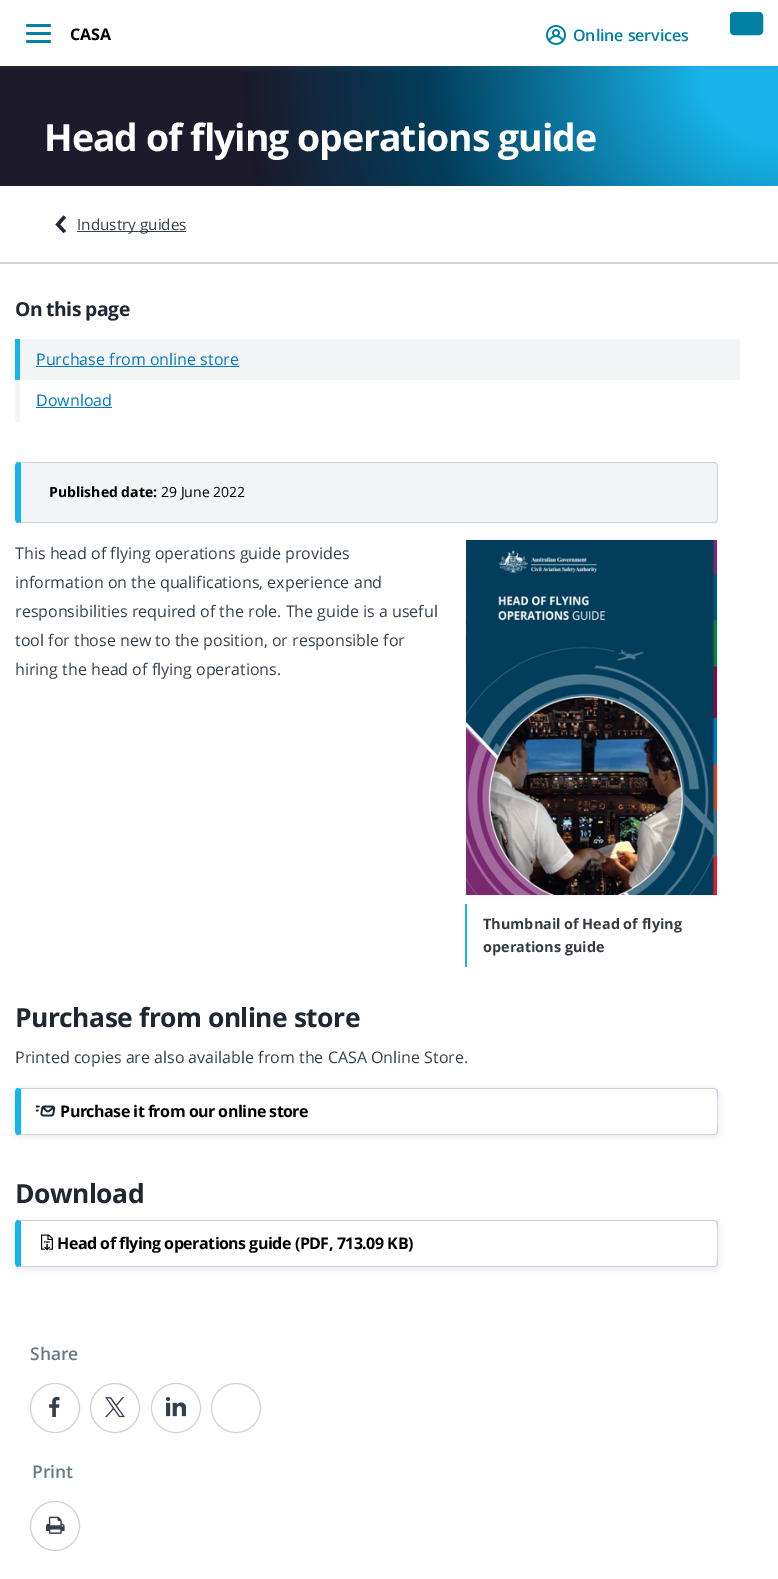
%!PS
<< /PageSize [778 1579] /PageUsesTransparency true >> setpagedevice
/alpha { dup .setfillconstantalpha .setstrokeconstantalpha } def
/roundrect { 5 dict begin { /r /h /w /y /x } { exch def } forall
  x r add y moveto x w add y 2 copy h add r arct x w add y h add x 1 index r arct
  x y h add x y r arct x y 2 copy exch w add exch r arct closepath end } def
/shadow { 12 dict begin { /a /b /q /h /w /y /x } { exch def } forall gsave /was 0 def
  9 -2 -9 { dup b mul 4 div /e exch def 1 sub .425 mul 2.718 exch exp 1 add a .99 .min exch div /now exch def
    1 1 now sub 1 was sub div sub alpha /was now def
    w h .min e 2 mul add 0 gt { x e sub y e sub w e 2 mul add h e 2 mul add
      q e add b .6 mul add w h .min 2 div e add .min 0 .max roundrect fill } if } for grestore end } def
/picture { 5 dict begin { /h /w /y /x /name } { exch def } forall
  gsave x y translate w h scale
  w h 8 [w 0 0 h 0 0] name (r) file false 3 colorimage grestore end } def
0 .pushpdf14devicefilter
0 1579 translate 1 -1 scale
4 setmiterlimit
1 setgray
0 0 778 1579 rectfill
gsave newpath 0 66 moveto 778 66 lineto 778 186 lineto 0 186 lineto closepath clip newpath 778 65 translate 787 787 scale
<< /ShadingType 3 /ColorSpace /DeviceRGB /Coords [0 0 0 0 0 1] /Extend [true true] /Function << /FunctionType 3 /Domain [0 1] /Functions [<< /FunctionType 2 /Domain [0 1] /C0 [0.094 0.706 0.914] /C1 [0.094 0.706 0.914] /N 1 >> << /FunctionType 2 /Domain [0 1] /C0 [0.094 0.706 0.914] /C1 [0.008 0.243 0.361] /N 1 >> << /FunctionType 2 /Domain [0 1] /C0 [0.008 0.243 0.361] /C1 [0.11 0.102 0.169] /N 1 >> << /FunctionType 2 /Domain [0 1] /C0 [0.11 0.102 0.169] /C1 [0.11 0.102 0.169] /N 1 >>] /Bounds [0.1 0.44 0.68] /Encode [0 1 0 1 0 1 0 1] >> >> shfill grestore
0.4 0.475 0.537 setrgbcolor
-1 1 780 68 0 2.5 0.12 shadow
1 setgray
0 0 778 66 rectfill
0 0.506 0.639 setrgbcolor
26 32 25 3 1.5 roundrect fill
26 24 25 3 1.5 roundrect fill
26 40 25 3 1.5 roundrect fill
/OpenSans-Bold [16 0 0 -16 0 0] selectfont
0 setgray
70 40 moveto (CASA) show
(img1.rgb) 546 25 20 20 picture
/OpenSans-SemiBold [16 0 0 -16 0 0] selectfont
0 0.506 0.639 setrgbcolor
573 41 moveto -0.1 0 (Online services) ashow
731 13 31 21 3 roundrect gsave fill grestore
2 setlinewidth
stroke
/OpenSans-Bold [37.4 0 0 -37.4 0 0] selectfont
1 setgray
44 151 moveto -1 0 (Head of flying operations guide) ashow
0.8 0.827 0.847 setrgbcolor
0 262 778 2 rectfill
0.122 0.153 0.2 setrgbcolor
newpath 63.5 215.5 moveto 66 217.5 lineto 60 224.5 lineto 66 231 lineto 63.5 233 lineto 55.5 224.5 lineto closepath fill
0.208 0.247 0.294 setrgbcolor
77 231 109 1 rectfill
/OpenSans-Regular [15.25 0 0 -15.25 0 0] selectfont
77 230 moveto (Industry guides) show
/OpenSans-Bold [19.25 0 0 -19.25 0 0] selectfont
0.122 0.153 0.2 setrgbcolor
15 316 moveto -0.5 0 (On this page) ashow
0.949 0.957 0.961 setrgbcolor
20 339 720 41 rectfill
0.075 0.71 0.918 setrgbcolor
15 339 5 41 rectfill
/OpenSans-Regular [16 0 0 -16 0 0] selectfont
0 0.475 0.753 setrgbcolor
36 365 moveto (Purchase from online store) show
36 366 203 1 rectfill
0.949 0.957 0.961 setrgbcolor
15 380 5 42 rectfill
0 0.475 0.753 setrgbcolor
36 406 moveto (Download) show
36 407 76 1 rectfill
0.949 0.957 0.961 setrgbcolor
newpath 21 463 moveto 714 463 lineto 716 463 717 464 717 466 curveto 717 519 lineto 717 521 716 522 714 522 curveto 21 522 lineto closepath fill
0.8 0.827 0.847 setrgbcolor
newpath 19 462 moveto 17 462 lineto 21 463 lineto 714 463 lineto 716 464 lineto 717 463 lineto 714 462 lineto closepath fill
newpath 718 519 moveto 718 466 lineto 717 463 lineto 716 464 lineto 717 465 lineto 717 519 lineto 716 521 lineto 717 522 lineto closepath fill
newpath 19 523 moveto 714 523 lineto 717 522 lineto 716 521 lineto 714 522 lineto 21 522 lineto 17 523 lineto closepath fill
0.075 0.71 0.918 setrgbcolor
newpath 21 463 moveto 17 462 lineto 16 463 15 465 15 466 curveto 15 519 lineto 15 520 16 522 17 523 curveto 21 522 lineto closepath fill
/OpenSans-Bold [14 0 0 -14 0 0] selectfont
0 setgray
49 497 moveto (Published date:) show
/OpenSans-Regular [14 0 0 -14 0 0] selectfont
161 497 moveto (29 June 2022) show
/OpenSans-Regular [16 0 0 -16 0 0] selectfont
0.208 0.247 0.294 setrgbcolor
15 559 moveto (This head of flying operations guide provides) show
15 588 moveto (information on the qualifications, experience and) show
15 617 moveto (responsibilities required of the role. The guide is a useful) show
15 646 moveto (tool for those new to the position, or responsible for) show
15 675 moveto (hiring the head of flying operations.) show
0.949 0.957 0.961 setrgbcolor
1 setlinewidth
465.5 539.5 252 356 rectstroke
(img2.rgb) 466 540 251 355 picture
0.075 0.71 0.918 setrgbcolor
465 904 2 63 rectfill
/OpenSans-Bold [14.4 0 0 -14.4 0 0] selectfont
0.204 0.227 0.251 setrgbcolor
483 929 moveto (Thumbnail of Head of flying) show
483 952 moveto (operations guide) show
/OpenSans-Bold [26.4 0 0 -26.4 0 0] selectfont
0.122 0.153 0.2 setrgbcolor
15 1027 moveto -0.5 0 (Purchase from online store) ashow
/OpenSans-Regular [16 0 0 -16 0 0] selectfont
0.208 0.247 0.294 setrgbcolor
15 1063 moveto (Printed copies are also available from the CASA Online Store.) show
gsave
newpath 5 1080 moveto 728 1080 lineto 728 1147 lineto 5 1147 lineto closepath 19 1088 moveto 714 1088 lineto 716 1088 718 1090 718 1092 curveto 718 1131 lineto 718 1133 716 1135 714 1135 curveto 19 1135 lineto 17 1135 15 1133 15 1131 curveto 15 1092 lineto 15 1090 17 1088 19 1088 curveto closepath eoclip newpath
0.4 0.475 0.537 setrgbcolor
14 1089 705 49 5 2.5 0.12 shadow
grestore
0.8 0.827 0.847 setrgbcolor
newpath 19 1088 moveto 17 1088 lineto 21 1089 lineto 714 1089 lineto 716 1090 lineto 717 1089 lineto 714 1088 lineto closepath fill
newpath 718 1131 moveto 718 1092 lineto 718 1091 718 1090 717 1089 curveto 716 1090 lineto 718 1091 718 1132 716 1133 curveto 717 1134 lineto closepath fill
newpath 19 1135 moveto 714 1135 lineto 717 1134 lineto 716 1133 lineto 714 1134 lineto 21 1134 lineto 17 1135 lineto closepath fill
0.075 0.71 0.918 setrgbcolor
newpath 21 1089 moveto 17 1088 lineto 16 1089 15 1091 15 1092 curveto 15 1131 lineto 15 1132 16 1134 17 1135 curveto 21 1134 lineto closepath fill
(img3.rgb) 36 1105 20 12 picture
/OpenSans-Bold [16 0 0 -16 0 0] selectfont
0 setgray
60 1117 moveto -0.5 0 (Purchase it from our online store) ashow
/OpenSans-Bold [26.4 0 0 -26.4 0 0] selectfont
0.122 0.153 0.2 setrgbcolor
15 1203 moveto -0.5 0 (Download) ashow
gsave
newpath 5 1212 moveto 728 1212 lineto 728 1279 lineto 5 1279 lineto closepath 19 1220 moveto 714 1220 lineto 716 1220 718 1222 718 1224 curveto 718 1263 lineto 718 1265 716 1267 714 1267 curveto 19 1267 lineto 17 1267 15 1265 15 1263 curveto 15 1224 lineto 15 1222 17 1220 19 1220 curveto closepath eoclip newpath
0.4 0.475 0.537 setrgbcolor
14 1221 705 49 5 2.5 0.12 shadow
grestore
0.8 0.827 0.847 setrgbcolor
newpath 19 1220 moveto 17 1220 lineto 21 1221 lineto 714 1221 lineto 716 1222 lineto 717 1221 lineto 714 1220 lineto closepath fill
newpath 718 1263 moveto 718 1224 lineto 718 1223 718 1222 717 1221 curveto 716 1222 lineto 718 1223 718 1264 716 1265 curveto 717 1266 lineto closepath fill
newpath 19 1267 moveto 714 1267 lineto 717 1266 lineto 716 1265 lineto 714 1266 lineto 21 1266 lineto 17 1267 lineto closepath fill
0.075 0.71 0.918 setrgbcolor
newpath 21 1221 moveto 17 1220 lineto 16 1221 15 1223 15 1224 curveto 15 1263 lineto 15 1264 16 1266 17 1267 curveto 21 1266 lineto closepath fill
(img4.rgb) 41 1234 12 17 picture
/OpenSans-Bold [16 0 0 -16 0 0] selectfont
0 setgray
57 1249 moveto -0.5 0 (Head of flying operations guide \(PDF, 713.09 KB\)) ashow
/OpenSans-SemiBold [17.5 0 0 -17.5 0 0] selectfont
0.4 0.475 0.537 setrgbcolor
30 1360 moveto (Share) show
0.8 0.827 0.847 setrgbcolor
newpath 55 1408 24.5 0 360 arc closepath stroke
(img5.rgb) 49 1396 11 21 picture
newpath 115 1408 24.5 0 360 arc closepath stroke
(img6.rgb) 105 1397 20 21 picture
newpath 176 1408 24.5 0 360 arc closepath stroke
(img7.rgb) 166 1397 20 20 picture
newpath 236 1408 24.5 0 360 arc closepath stroke
0.4 0.475 0.537 setrgbcolor
32 1478 moveto (Print) show
0.8 0.827 0.847 setrgbcolor
newpath 55 1526 24.5 0 360 arc closepath stroke
(img8.rgb) 46 1516 19 18 picture
.poppdf14devicefilter showpage
